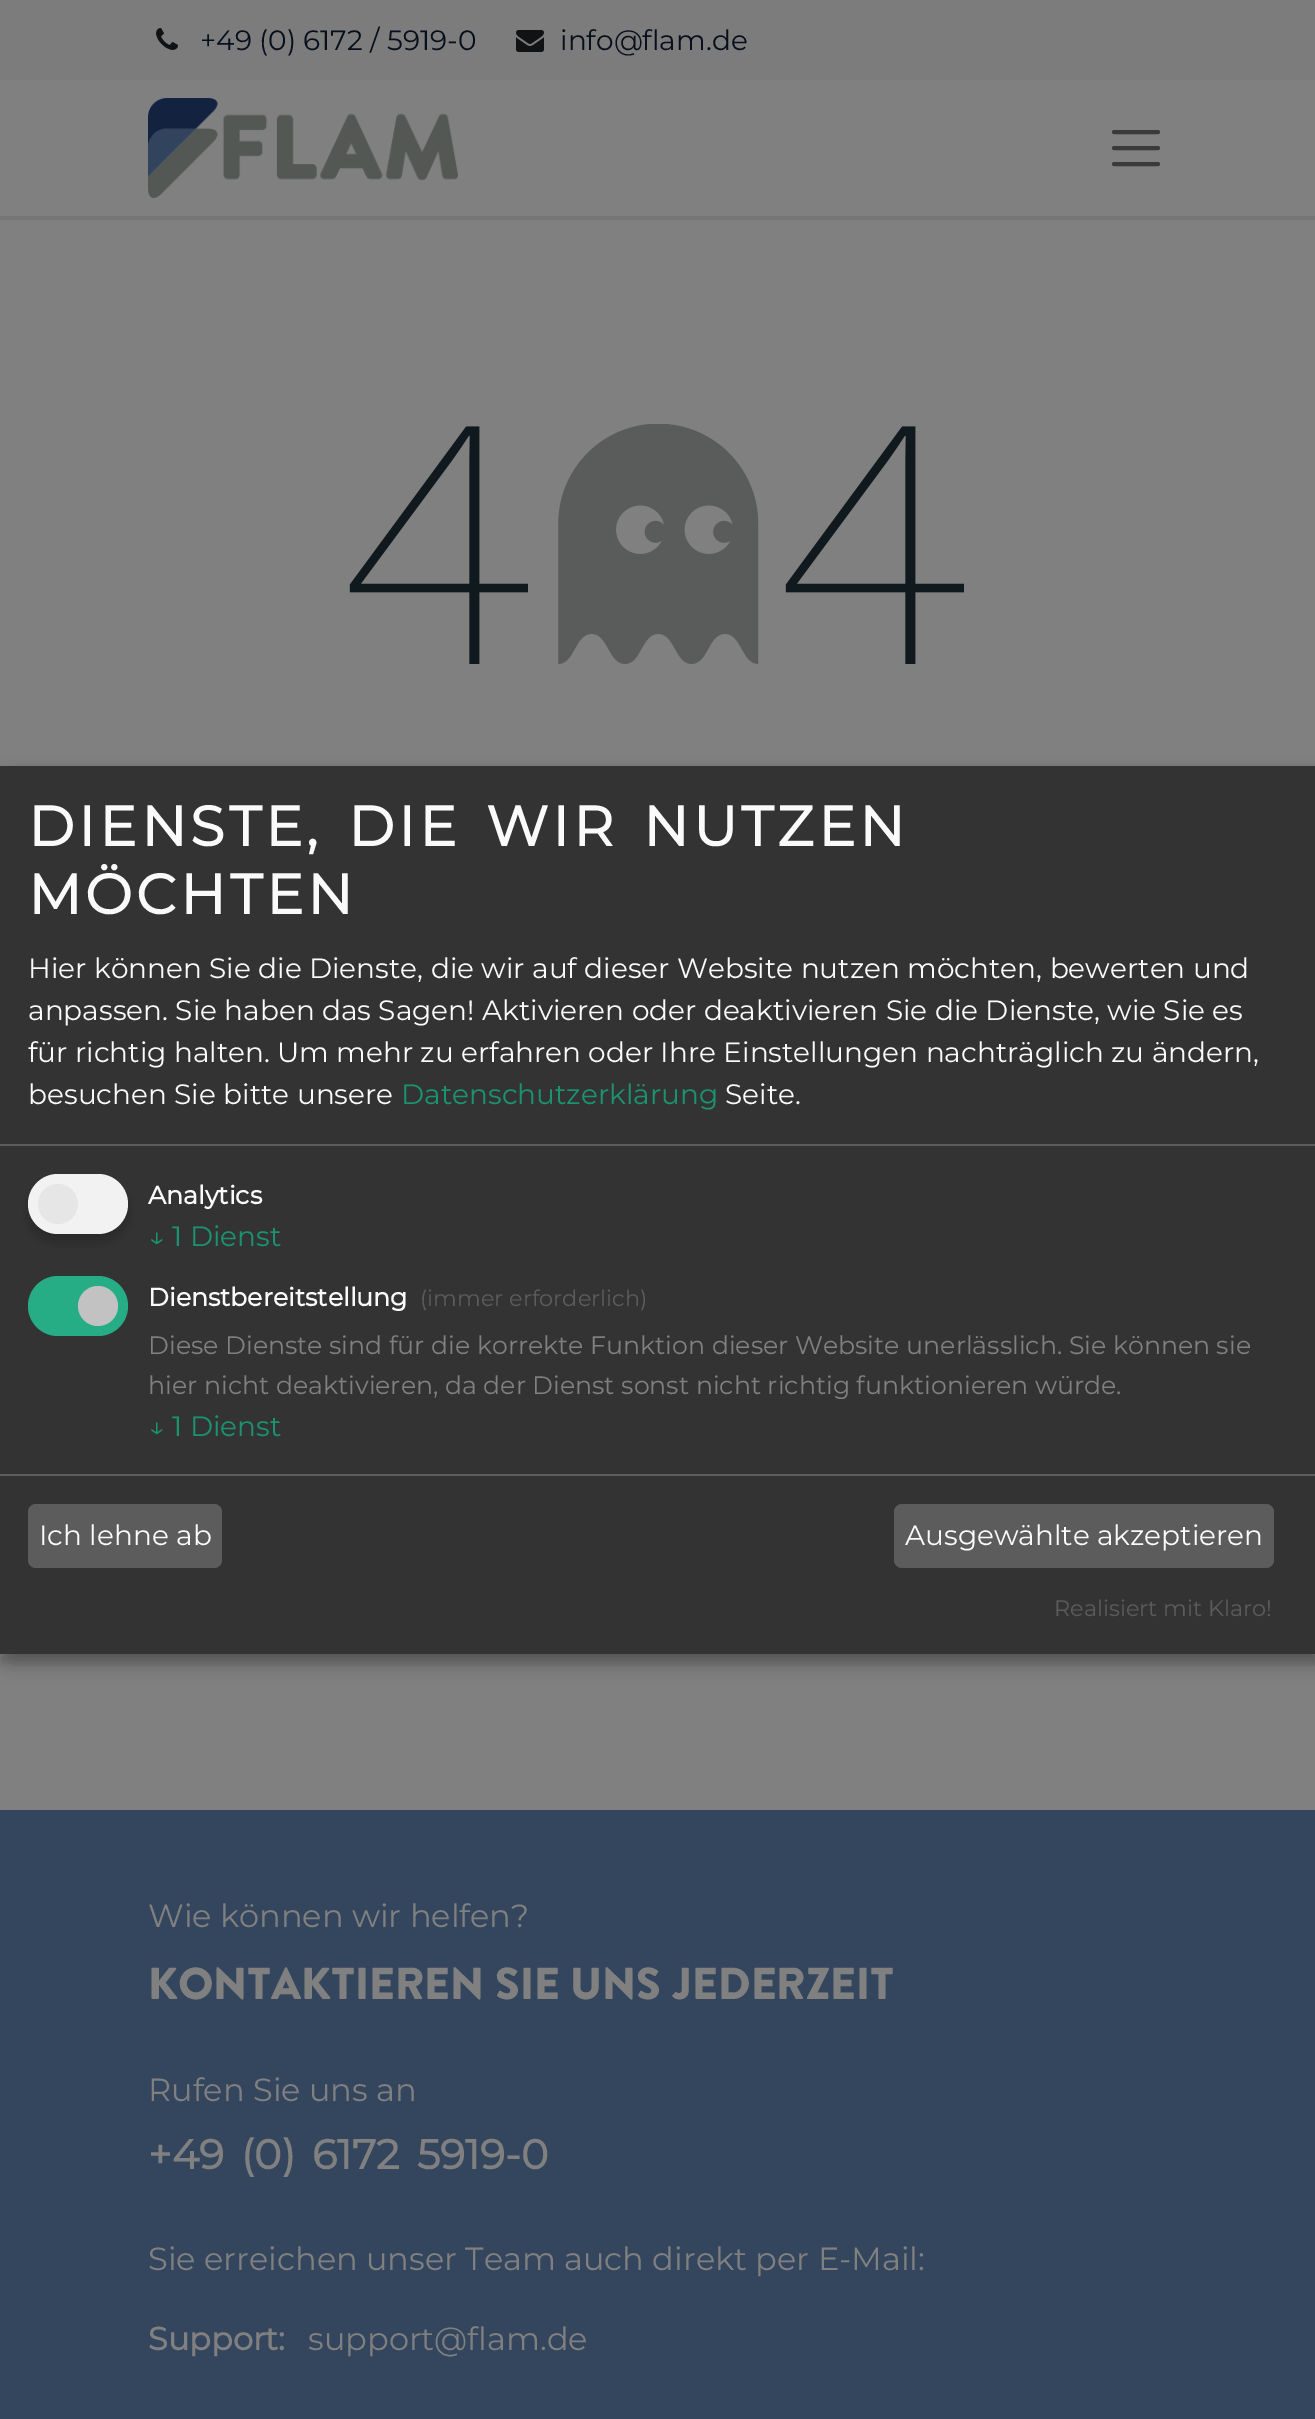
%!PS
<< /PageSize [1315 2419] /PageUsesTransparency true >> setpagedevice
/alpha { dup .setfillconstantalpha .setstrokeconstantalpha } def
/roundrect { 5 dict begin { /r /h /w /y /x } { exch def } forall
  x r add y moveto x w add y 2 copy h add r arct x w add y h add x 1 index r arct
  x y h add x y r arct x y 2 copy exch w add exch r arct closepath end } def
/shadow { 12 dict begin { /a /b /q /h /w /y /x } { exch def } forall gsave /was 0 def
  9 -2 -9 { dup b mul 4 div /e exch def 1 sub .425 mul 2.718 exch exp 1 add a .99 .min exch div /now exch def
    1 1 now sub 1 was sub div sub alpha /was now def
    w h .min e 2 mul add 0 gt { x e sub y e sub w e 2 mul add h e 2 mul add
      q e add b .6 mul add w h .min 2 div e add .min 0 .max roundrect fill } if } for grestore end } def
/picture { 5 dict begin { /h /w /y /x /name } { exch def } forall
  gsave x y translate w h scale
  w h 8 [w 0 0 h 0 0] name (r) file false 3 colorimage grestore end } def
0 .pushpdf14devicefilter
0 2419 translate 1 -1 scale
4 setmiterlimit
0.502 setgray
0 0 1315 2419 rectfill
0.486 0.486 0.49 setrgbcolor
0 0 1315 80 rectfill
(img1.rgb) 156 28 22 22 picture
/Montserrat-Regular [28 0 0 -28 0 0] selectfont
0.027 0.059 0.106 setrgbcolor
200 50 moveto (+49 \(0\) 6172 / 5919-0) show
(img2.rgb) 516 30 28 22 picture
560 50 moveto (info@flam.de) show
0.463 setgray
0 216 1315 4 rectfill
(img3.rgb) 148 98 310 100 picture
0.227 setgray
4 setlinewidth
1 setlinecap
newpath 1114 132 moveto 1158 132 lineto 1114 148 moveto 1158 148 lineto 1114 164 moveto 1158 164 lineto stroke
(img4.rgb) 349 424 615 240 picture
0.2 0.275 0.369 setrgbcolor
0 1810 1315 609 rectfill
/Montserrat-Regular [32 0 0 -32 0 0] selectfont
0.502 setgray
148 1927 moveto (Wie können wir helfen?) show
/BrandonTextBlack-Black [44.75 0 0 -44.75 0 0] selectfont
148 1999 moveto (KONTAKTIEREN SIE UNS JEDERZEIT) show
/Montserrat-Regular [32 0 0 -32 0 0] selectfont
148 2101 moveto (Rufen Sie uns an) show
/Montserrat-Bold [41.25 0 0 -41.25 0 0] selectfont
148 2169 moveto 6 0 32 (+49 \(0\) 6172 5919-0) widthshow
/Montserrat-Regular [32 0 0 -32 0 0] selectfont
148 2270 moveto (Sie erreichen unser Team auch direkt per E-Mail:) show
/Montserrat-Bold [32 0 0 -32 0 0] selectfont
148 2350 moveto (Support:) show
/Montserrat-Regular [32 0 0 -32 0 0] selectfont
308 2350 moveto (support@flam.de) show
0 setgray
10 776 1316 888 0 10 0.19 shadow
0 774 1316 888 0 6 0.2 shadow
0.2 setgray
0 766 1315 888 rectfill
0.361 setgray
0 1144 1315 2 rectfill
/Montserrat-Bold [56 0 0 -56 0 0] selectfont
0.98 setgray
28 846 moveto 7 0 32 4 0 (DIENSTE, DIE WIR NUTZEN) awidthshow
28 914 moveto 4 0 (MÖCHTEN) ashow
/Montserrat-Regular [28 0 0 -28 0 0] selectfont
28 978 moveto (Hier können Sie die Dienste, die wir auf dieser Website nutzen möchten, bewerten und) show
28 1020 moveto (anpassen. Sie haben das Sagen! Aktivieren oder deaktivieren Sie die Dienste, wie Sie es) show
28 1062 moveto (für richtig halten. Um mehr zu erfahren oder Ihre Einstellungen nachträglich zu ändern,) show
28 1104 moveto (besuchen Sie bitte unsere) show
0.102 0.576 0.435 setrgbcolor
401 1104 moveto (Datenschutzerklärung) show
0.98 setgray
725 1104 moveto (Seite.) show
0 setgray
28 1182 100 60 30 6 0.2 shadow
0.949 setgray
28 1174 100 60 30 roundrect fill
0.902 setgray
newpath 58 1204 20 0 360 arc closepath fill
/Montserrat-Bold [25.2 0 0 -25.2 0 0] selectfont
0.98 setgray
148 1204 moveto (Analytics) show
/Montserrat-Regular [28 0 0 -28 0 0] selectfont
0.102 0.576 0.435 setrgbcolor
148 1246 moveto (↓ 1 Dienst) show
0.153 0.678 0.522 setrgbcolor
28 1276 100 60 30 roundrect fill
0.761 setgray
newpath 98 1306 20 0 360 arc closepath fill
/Montserrat-Bold [25.2 0 0 -25.2 0 0] selectfont
0.98 setgray
148 1306 moveto (Dienstbereitstellung) show
/Montserrat-Regular [22.4 0 0 -22.4 0 0] selectfont
0.361 setgray
420 1306 moveto (\(immer erforderlich\)) show
/Montserrat-Regular [25.2 0 0 -25.2 0 0] selectfont
0.502 setgray
148 1354 moveto (Diese Dienste sind für die korrekte Funktion dieser Website unerlässlich. Sie können sie) show
148 1394 moveto (hier nicht deaktivieren, da der Dienst sonst nicht richtig funktionieren würde.) show
/Montserrat-Regular [28 0 0 -28 0 0] selectfont
0.102 0.576 0.435 setrgbcolor
148 1436 moveto (↓ 1 Dienst) show
0.361 setgray
0 1474 1315 2 rectfill
28 1504 194 64 8 roundrect fill
0.98 setgray
39 1545 moveto (Ich lehne ab) show
0.361 setgray
894 1504 380 64 8 roundrect fill
0.98 setgray
905 1545 moveto (Ausgewählte akzeptieren) show
/Montserrat-Regular [22.4 0 0 -22.4 0 0] selectfont
0.361 setgray
1054 1616 moveto (Realisiert mit Klaro!) show
.poppdf14devicefilter showpage
